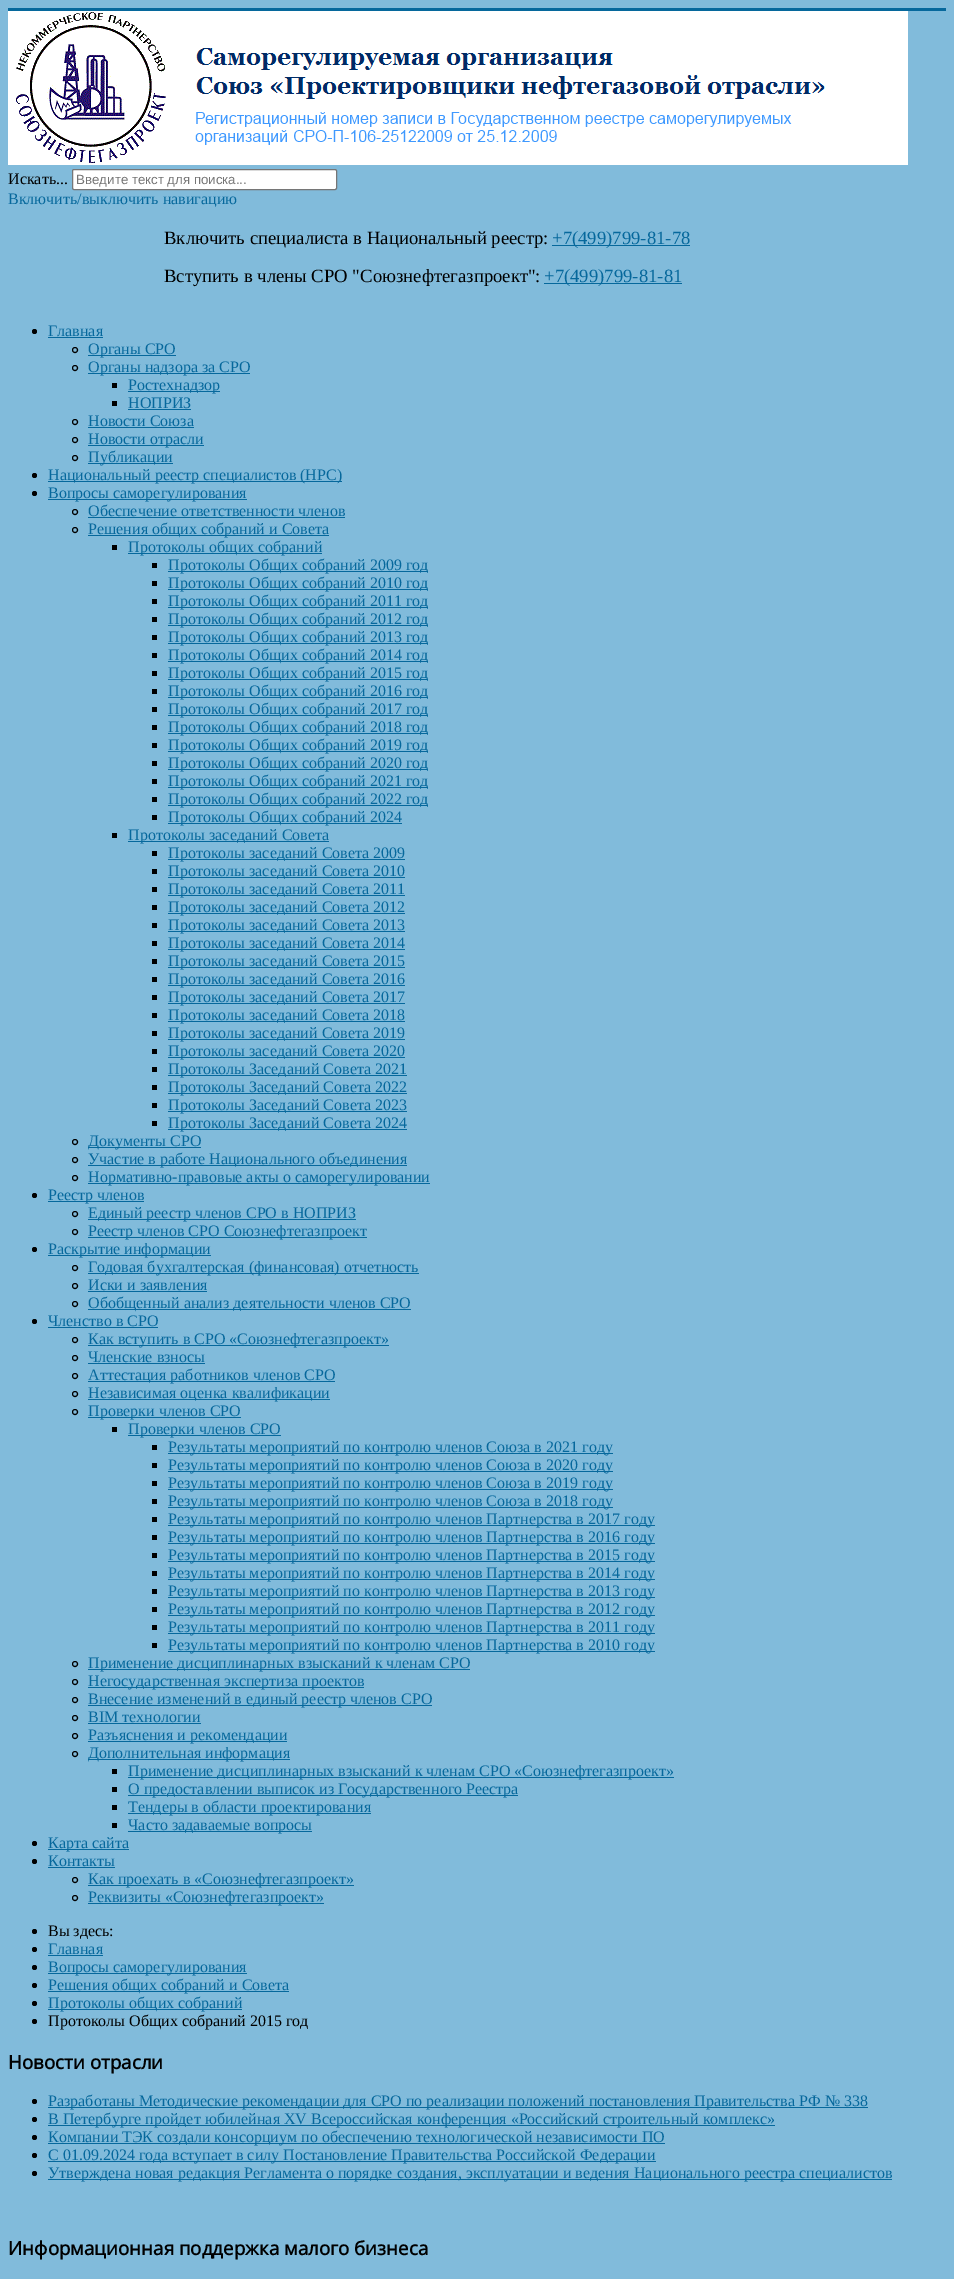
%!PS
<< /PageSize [954 2279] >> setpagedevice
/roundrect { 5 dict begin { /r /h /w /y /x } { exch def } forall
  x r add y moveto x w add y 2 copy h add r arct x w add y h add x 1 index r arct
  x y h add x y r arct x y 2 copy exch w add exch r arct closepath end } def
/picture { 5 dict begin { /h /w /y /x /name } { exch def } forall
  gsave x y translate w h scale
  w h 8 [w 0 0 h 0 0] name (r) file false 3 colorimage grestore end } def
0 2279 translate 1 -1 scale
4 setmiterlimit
0.506 0.733 0.859 setrgbcolor
0 0 954 2279 rectfill
0.024 0.408 0.612 setrgbcolor
8 8 938 3 rectfill
(img1.rgb) 8 11 900 154 picture
/LiberationSerif-Regular [16 0 0 -16 0 0] selectfont
0 setgray
8 184 moveto (Искать...) show
1 setgray
72.5 169.5 264 20 1.5 roundrect gsave fill grestore
0.463 setgray
stroke
/LiberationSans-Regular [13.3 0 0 -13.3 0 0] selectfont
0.459 setgray
76 184 moveto (Введите текст для поиска...) show
/LiberationSerif-Regular [16 0 0 -16 0 0] selectfont
0.024 0.408 0.612 setrgbcolor
8 204 moveto (Включить/выключить навигацию) show
/LiberationSerif-Regular [18.7 0 0 -18.7 0 0] selectfont
0 setgray
164 244 moveto (Включить специалиста в Национальный реестр:) show
0.024 0.408 0.612 setrgbcolor
552 245 138 1 rectfill
552 244 moveto (+7\(499\)799-81-78) show
0 setgray
164 282 moveto (Вступить в члены СРО "Союзнефтегазпроект":) show
0.024 0.408 0.612 setrgbcolor
544 283 138 1 rectfill
544 282 moveto (+7\(499\)799-81-81) show
0 setgray
newpath 34.5 331.5 2.5 0 360 arc closepath fill
/LiberationSerif-Regular [16 0 0 -16 0 0] selectfont
0.024 0.408 0.612 setrgbcolor
48 336 moveto (Главная) show
48 337 55 1 rectfill
0 setgray
newpath 75 350 2.5 0 360 arc closepath stroke
0.024 0.408 0.612 setrgbcolor
88 355 88 1 rectfill
88 354 moveto (Органы СРО) show
0 setgray
newpath 75 368 2.5 0 360 arc closepath stroke
0.024 0.408 0.612 setrgbcolor
88 373 162 1 rectfill
88 372 moveto (Органы надзора за СРО) show
0 setgray
112 383 5 5 rectfill
0.024 0.408 0.612 setrgbcolor
128 391 92 1 rectfill
128 390 moveto (Ростехнадзор) show
0 setgray
112 401 5 5 rectfill
0.024 0.408 0.612 setrgbcolor
128 408 moveto (НОПРИЗ) show
128 409 63 1 rectfill
0 setgray
newpath 75 422 2.5 0 360 arc closepath stroke
0.024 0.408 0.612 setrgbcolor
88 426 moveto (Новости Союза) show
88 427 106 1 rectfill
0 setgray
newpath 75 440 2.5 0 360 arc closepath stroke
0.024 0.408 0.612 setrgbcolor
88 445 116 1 rectfill
88 444 moveto (Новости отрасли) show
0 setgray
newpath 75 458 2.5 0 360 arc closepath stroke
0.024 0.408 0.612 setrgbcolor
88 463 85 1 rectfill
88 462 moveto (Публикации) show
0 setgray
newpath 34.5 475.5 2.5 0 360 arc closepath fill
0.024 0.408 0.612 setrgbcolor
48 481 294 1 rectfill
48 480 moveto (Национальный реестр специалистов \(НРС\)) show
0 setgray
newpath 34.5 493.5 2.5 0 360 arc closepath fill
0.024 0.408 0.612 setrgbcolor
48 499 199 1 rectfill
48 498 moveto (Вопросы саморегулирования) show
0 setgray
newpath 75 512 2.5 0 360 arc closepath stroke
0.024 0.408 0.612 setrgbcolor
88 516 moveto (Обеспечение ответственности членов) show
88 517 257 1 rectfill
0 setgray
newpath 75 530 2.5 0 360 arc closepath stroke
0.024 0.408 0.612 setrgbcolor
88 535 241 1 rectfill
88 534 moveto (Решения общих собраний и Совета) show
0 setgray
112 545 5 5 rectfill
0.024 0.408 0.612 setrgbcolor
128 553 194 1 rectfill
128 552 moveto (Протоколы общих собраний) show
0 setgray
152 563 5 5 rectfill
0.024 0.408 0.612 setrgbcolor
168 571 260 1 rectfill
168 570 moveto (Протоколы Общих собраний 2009 год) show
0 setgray
152 581 5 5 rectfill
0.024 0.408 0.612 setrgbcolor
168 589 260 1 rectfill
168 588 moveto (Протоколы Общих собраний 2010 год) show
0 setgray
152 599 5 5 rectfill
0.024 0.408 0.612 setrgbcolor
168 607 260 1 rectfill
168 606 moveto (Протоколы Общих собраний 2011 год) show
0 setgray
152 617 5 5 rectfill
0.024 0.408 0.612 setrgbcolor
168 625 260 1 rectfill
168 624 moveto (Протоколы Общих собраний 2012 год) show
0 setgray
152 635 5 5 rectfill
0.024 0.408 0.612 setrgbcolor
168 643 260 1 rectfill
168 642 moveto (Протоколы Общих собраний 2013 год) show
0 setgray
152 653 5 5 rectfill
0.024 0.408 0.612 setrgbcolor
168 661 260 1 rectfill
168 660 moveto (Протоколы Общих собраний 2014 год) show
0 setgray
152 671 5 5 rectfill
0.024 0.408 0.612 setrgbcolor
168 679 260 1 rectfill
168 678 moveto (Протоколы Общих собраний 2015 год) show
0 setgray
152 689 5 5 rectfill
0.024 0.408 0.612 setrgbcolor
168 697 260 1 rectfill
168 696 moveto (Протоколы Общих собраний 2016 год) show
0 setgray
152 707 5 5 rectfill
0.024 0.408 0.612 setrgbcolor
168 715 260 1 rectfill
168 714 moveto (Протоколы Общих собраний 2017 год) show
0 setgray
152 725 5 5 rectfill
0.024 0.408 0.612 setrgbcolor
168 733 260 1 rectfill
168 732 moveto (Протоколы Общих собраний 2018 год) show
0 setgray
152 743 5 5 rectfill
0.024 0.408 0.612 setrgbcolor
168 751 260 1 rectfill
168 750 moveto (Протоколы Общих собраний 2019 год) show
0 setgray
152 761 5 5 rectfill
0.024 0.408 0.612 setrgbcolor
168 769 260 1 rectfill
168 768 moveto (Протоколы Общих собраний 2020 год) show
0 setgray
152 779 5 5 rectfill
0.024 0.408 0.612 setrgbcolor
168 787 260 1 rectfill
168 786 moveto (Протоколы Общих собраний 2021 год) show
0 setgray
152 797 5 5 rectfill
0.024 0.408 0.612 setrgbcolor
168 805 260 1 rectfill
168 804 moveto (Протоколы Общих собраний 2022 год) show
0 setgray
152 815 5 5 rectfill
0.024 0.408 0.612 setrgbcolor
168 823 234 1 rectfill
168 822 moveto (Протоколы Общих собраний 2024) show
0 setgray
112 833 5 5 rectfill
0.024 0.408 0.612 setrgbcolor
128 841 201 1 rectfill
128 840 moveto (Протоколы заседаний Совета) show
0 setgray
152 851 5 5 rectfill
0.024 0.408 0.612 setrgbcolor
168 859 237 1 rectfill
168 858 moveto (Протоколы заседаний Совета 2009) show
0 setgray
152 869 5 5 rectfill
0.024 0.408 0.612 setrgbcolor
168 877 237 1 rectfill
168 876 moveto (Протоколы заседаний Совета 2010) show
0 setgray
152 887 5 5 rectfill
0.024 0.408 0.612 setrgbcolor
168 895 237 1 rectfill
168 894 moveto (Протоколы заседаний Совета 2011) show
0 setgray
152 905 5 5 rectfill
0.024 0.408 0.612 setrgbcolor
168 913 237 1 rectfill
168 912 moveto (Протоколы заседаний Совета 2012) show
0 setgray
152 923 5 5 rectfill
0.024 0.408 0.612 setrgbcolor
168 931 237 1 rectfill
168 930 moveto (Протоколы заседаний Совета 2013) show
0 setgray
152 941 5 5 rectfill
0.024 0.408 0.612 setrgbcolor
168 949 237 1 rectfill
168 948 moveto (Протоколы заседаний Совета 2014) show
0 setgray
152 959 5 5 rectfill
0.024 0.408 0.612 setrgbcolor
168 967 237 1 rectfill
168 966 moveto (Протоколы заседаний Совета 2015) show
0 setgray
152 977 5 5 rectfill
0.024 0.408 0.612 setrgbcolor
168 985 237 1 rectfill
168 984 moveto (Протоколы заседаний Совета 2016) show
0 setgray
152 995 5 5 rectfill
0.024 0.408 0.612 setrgbcolor
168 1003 237 1 rectfill
168 1002 moveto (Протоколы заседаний Совета 2017) show
0 setgray
152 1013 5 5 rectfill
0.024 0.408 0.612 setrgbcolor
168 1021 237 1 rectfill
168 1020 moveto (Протоколы заседаний Совета 2018) show
0 setgray
152 1031 5 5 rectfill
0.024 0.408 0.612 setrgbcolor
168 1039 237 1 rectfill
168 1038 moveto (Протоколы заседаний Совета 2019) show
0 setgray
152 1049 5 5 rectfill
0.024 0.408 0.612 setrgbcolor
168 1057 237 1 rectfill
168 1056 moveto (Протоколы заседаний Совета 2020) show
0 setgray
152 1067 5 5 rectfill
0.024 0.408 0.612 setrgbcolor
168 1075 239 1 rectfill
168 1074 moveto (Протоколы Заседаний Совета 2021) show
0 setgray
152 1085 5 5 rectfill
0.024 0.408 0.612 setrgbcolor
168 1093 239 1 rectfill
168 1092 moveto (Протоколы Заседаний Совета 2022) show
0 setgray
152 1103 5 5 rectfill
0.024 0.408 0.612 setrgbcolor
168 1111 239 1 rectfill
168 1110 moveto (Протоколы Заседаний Совета 2023) show
0 setgray
152 1121 5 5 rectfill
0.024 0.408 0.612 setrgbcolor
168 1129 239 1 rectfill
168 1128 moveto (Протоколы Заседаний Совета 2024) show
0 setgray
newpath 75 1142 2.5 0 360 arc closepath stroke
0.024 0.408 0.612 setrgbcolor
88 1147 113 1 rectfill
88 1146 moveto (Документы СРО) show
0 setgray
newpath 75 1160 2.5 0 360 arc closepath stroke
0.024 0.408 0.612 setrgbcolor
88 1165 319 1 rectfill
88 1164 moveto (Участие в работе Национального объединения) show
0 setgray
newpath 75 1178 2.5 0 360 arc closepath stroke
0.024 0.408 0.612 setrgbcolor
88 1183 342 1 rectfill
88 1182 moveto (Нормативно-правовые акты о саморегулировании) show
0 setgray
newpath 34.5 1195.5 2.5 0 360 arc closepath fill
0.024 0.408 0.612 setrgbcolor
48 1201 96 1 rectfill
48 1200 moveto (Реестр членов) show
0 setgray
newpath 75 1214 2.5 0 360 arc closepath stroke
0.024 0.408 0.612 setrgbcolor
88 1219 268 1 rectfill
88 1218 moveto (Единый реестр членов СРО в НОПРИЗ) show
0 setgray
newpath 75 1232 2.5 0 360 arc closepath stroke
0.024 0.408 0.612 setrgbcolor
88 1237 279 1 rectfill
88 1236 moveto (Реестр членов СРО Союзнефтегазпроект) show
0 setgray
newpath 34.5 1249.5 2.5 0 360 arc closepath fill
0.024 0.408 0.612 setrgbcolor
48 1255 163 1 rectfill
48 1254 moveto (Раскрытие информации) show
0 setgray
newpath 75 1268 2.5 0 360 arc closepath stroke
0.024 0.408 0.612 setrgbcolor
88 1273 331 1 rectfill
88 1272 moveto (Годовая бухгалтерская \(финансовая\) отчетность) show
0 setgray
newpath 75 1286 2.5 0 360 arc closepath stroke
0.024 0.408 0.612 setrgbcolor
88 1290 moveto (Иски и заявления) show
88 1291 119 1 rectfill
0 setgray
newpath 75 1304 2.5 0 360 arc closepath stroke
0.024 0.408 0.612 setrgbcolor
88 1309 323 1 rectfill
88 1308 moveto (Обобщенный анализ деятельности членов СРО) show
0 setgray
newpath 34.5 1321.5 2.5 0 360 arc closepath fill
0.024 0.408 0.612 setrgbcolor
48 1326 moveto (Членство в СРО) show
48 1327 110 1 rectfill
0 setgray
newpath 75 1340 2.5 0 360 arc closepath stroke
0.024 0.408 0.612 setrgbcolor
88 1345 301 1 rectfill
88 1344 moveto (Как вступить в СРО «Союзнефтегазпроект») show
0 setgray
newpath 75 1358 2.5 0 360 arc closepath stroke
0.024 0.408 0.612 setrgbcolor
88 1362 moveto (Членские взносы) show
88 1363 117 1 rectfill
0 setgray
newpath 75 1376 2.5 0 360 arc closepath stroke
0.024 0.408 0.612 setrgbcolor
88 1381 247 1 rectfill
88 1380 moveto (Аттестация работников членов СРО) show
0 setgray
newpath 75 1394 2.5 0 360 arc closepath stroke
0.024 0.408 0.612 setrgbcolor
88 1399 242 1 rectfill
88 1398 moveto (Независимая оценка квалификации) show
0 setgray
newpath 75 1412 2.5 0 360 arc closepath stroke
0.024 0.408 0.612 setrgbcolor
88 1417 153 1 rectfill
88 1416 moveto (Проверки членов СРО) show
0 setgray
112 1427 5 5 rectfill
0.024 0.408 0.612 setrgbcolor
128 1435 153 1 rectfill
128 1434 moveto (Проверки членов СРО) show
0 setgray
152 1445 5 5 rectfill
0.024 0.408 0.612 setrgbcolor
168 1453 445 1 rectfill
168 1452 moveto (Результаты мероприятий по контролю членов Союза в 2021 году) show
0 setgray
152 1463 5 5 rectfill
0.024 0.408 0.612 setrgbcolor
168 1471 445 1 rectfill
168 1470 moveto (Результаты мероприятий по контролю членов Союза в 2020 году) show
0 setgray
152 1481 5 5 rectfill
0.024 0.408 0.612 setrgbcolor
168 1489 445 1 rectfill
168 1488 moveto (Результаты мероприятий по контролю членов Союза в 2019 году) show
0 setgray
152 1499 5 5 rectfill
0.024 0.408 0.612 setrgbcolor
168 1507 445 1 rectfill
168 1506 moveto (Результаты мероприятий по контролю членов Союза в 2018 году) show
0 setgray
152 1517 5 5 rectfill
0.024 0.408 0.612 setrgbcolor
168 1525 487 1 rectfill
168 1524 moveto (Результаты мероприятий по контролю членов Партнерства в 2017 году) show
0 setgray
152 1535 5 5 rectfill
0.024 0.408 0.612 setrgbcolor
168 1543 487 1 rectfill
168 1542 moveto (Результаты мероприятий по контролю членов Партнерства в 2016 году) show
0 setgray
152 1553 5 5 rectfill
0.024 0.408 0.612 setrgbcolor
168 1561 487 1 rectfill
168 1560 moveto (Результаты мероприятий по контролю членов Партнерства в 2015 году) show
0 setgray
152 1571 5 5 rectfill
0.024 0.408 0.612 setrgbcolor
168 1579 487 1 rectfill
168 1578 moveto (Результаты мероприятий по контролю членов Партнерства в 2014 году) show
0 setgray
152 1589 5 5 rectfill
0.024 0.408 0.612 setrgbcolor
168 1597 487 1 rectfill
168 1596 moveto (Результаты мероприятий по контролю членов Партнерства в 2013 году) show
0 setgray
152 1607 5 5 rectfill
0.024 0.408 0.612 setrgbcolor
168 1615 487 1 rectfill
168 1614 moveto (Результаты мероприятий по контролю членов Партнерства в 2012 году) show
0 setgray
152 1625 5 5 rectfill
0.024 0.408 0.612 setrgbcolor
168 1633 487 1 rectfill
168 1632 moveto (Результаты мероприятий по контролю членов Партнерства в 2011 году) show
0 setgray
152 1643 5 5 rectfill
0.024 0.408 0.612 setrgbcolor
168 1651 487 1 rectfill
168 1650 moveto (Результаты мероприятий по контролю членов Партнерства в 2010 году) show
0 setgray
newpath 75 1664 2.5 0 360 arc closepath stroke
0.024 0.408 0.612 setrgbcolor
88 1669 382 1 rectfill
88 1668 moveto (Применение дисциплинарных взысканий к членам СРО) show
0 setgray
newpath 75 1682 2.5 0 360 arc closepath stroke
0.024 0.408 0.612 setrgbcolor
88 1687 276 1 rectfill
88 1686 moveto (Негосударственная экспертиза проектов) show
0 setgray
newpath 75 1700 2.5 0 360 arc closepath stroke
0.024 0.408 0.612 setrgbcolor
88 1705 344 1 rectfill
88 1704 moveto (Внесение изменений в единый реестр членов СРО) show
0 setgray
newpath 75 1718 2.5 0 360 arc closepath stroke
0.024 0.408 0.612 setrgbcolor
88 1722 moveto (BIM технологии) show
88 1723 113 1 rectfill
0 setgray
newpath 75 1736 2.5 0 360 arc closepath stroke
0.024 0.408 0.612 setrgbcolor
88 1741 199 1 rectfill
88 1740 moveto (Разъяснения и рекомендации) show
0 setgray
newpath 75 1754 2.5 0 360 arc closepath stroke
0.024 0.408 0.612 setrgbcolor
88 1759 202 1 rectfill
88 1758 moveto (Дополнительная информация) show
0 setgray
112 1769 5 5 rectfill
0.024 0.408 0.612 setrgbcolor
128 1777 546 1 rectfill
128 1776 moveto (Применение дисциплинарных взысканий к членам СРО «Союзнефтегазпроект») show
0 setgray
112 1787 5 5 rectfill
0.024 0.408 0.612 setrgbcolor
128 1795 390 1 rectfill
128 1794 moveto (О предоставлении выписок из Государственного Реестра) show
0 setgray
112 1805 5 5 rectfill
0.024 0.408 0.612 setrgbcolor
128 1813 243 1 rectfill
128 1812 moveto (Тендеры в области проектирования) show
0 setgray
112 1823 5 5 rectfill
0.024 0.408 0.612 setrgbcolor
128 1831 184 1 rectfill
128 1830 moveto (Часто задаваемые вопросы) show
0 setgray
newpath 34.5 1843.5 2.5 0 360 arc closepath fill
0.024 0.408 0.612 setrgbcolor
48 1849 81 1 rectfill
48 1848 moveto (Карта сайта) show
0 setgray
newpath 34.5 1861.5 2.5 0 360 arc closepath fill
0.024 0.408 0.612 setrgbcolor
48 1866 moveto (Контакты) show
48 1867 67 1 rectfill
0 setgray
newpath 75 1880 2.5 0 360 arc closepath stroke
0.024 0.408 0.612 setrgbcolor
88 1885 266 1 rectfill
88 1884 moveto (Как проехать в «Союзнефтегазпроект») show
0 setgray
newpath 75 1898 2.5 0 360 arc closepath stroke
0.024 0.408 0.612 setrgbcolor
88 1903 236 1 rectfill
88 1902 moveto (Реквизиты «Союзнефтегазпроект») show
0 setgray
newpath 34.5 1931.5 2.5 0 360 arc closepath fill
48 1936 moveto (Вы здесь:) show
newpath 34.5 1949.5 2.5 0 360 arc closepath fill
0.024 0.408 0.612 setrgbcolor
48 1954 moveto (Главная) show
48 1955 55 1 rectfill
0 setgray
newpath 34.5 1967.5 2.5 0 360 arc closepath fill
0.024 0.408 0.612 setrgbcolor
48 1973 199 1 rectfill
48 1972 moveto (Вопросы саморегулирования) show
0 setgray
newpath 34.5 1985.5 2.5 0 360 arc closepath fill
0.024 0.408 0.612 setrgbcolor
48 1991 241 1 rectfill
48 1990 moveto (Решения общих собраний и Совета) show
0 setgray
newpath 34.5 2003.5 2.5 0 360 arc closepath fill
0.024 0.408 0.612 setrgbcolor
48 2009 194 1 rectfill
48 2008 moveto (Протоколы общих собраний) show
0 setgray
newpath 34.5 2021.5 2.5 0 360 arc closepath fill
48 2026 moveto (Протоколы Общих собраний 2015 год) show
/OpenSans-Bold [18.75 0 0 -18.75 0 0] selectfont
8 2069 moveto (Новости отрасли) show
newpath 34.5 2101.5 2.5 0 360 arc closepath fill
0.024 0.408 0.612 setrgbcolor
48 2107 820 1 rectfill
/LiberationSerif-Regular [16 0 0 -16 0 0] selectfont
48 2106 moveto (Разработаны Методические рекомендации для СРО по реализации положений постановления Правительства РФ № 338) show
0 setgray
newpath 34.5 2119.5 2.5 0 360 arc closepath fill
0.024 0.408 0.612 setrgbcolor
48 2125 727 1 rectfill
48 2124 moveto (В Петербурге пройдет юбилейная XV Всероссийская конференция «Российский строительный комплекс») show
0 setgray
newpath 34.5 2137.5 2.5 0 360 arc closepath fill
0.024 0.408 0.612 setrgbcolor
48 2143 617 1 rectfill
48 2142 moveto (Компании ТЭК создали консорциум по обеспечению технологической независимости ПО) show
0 setgray
newpath 34.5 2155.5 2.5 0 360 arc closepath fill
0.024 0.408 0.612 setrgbcolor
48 2161 608 1 rectfill
48 2160 moveto (С 01.09.2024 года вступает в силу Постановление Правительства Российской Федерации) show
0 setgray
newpath 34.5 2173.5 2.5 0 360 arc closepath fill
0.024 0.408 0.612 setrgbcolor
48 2179 844 1 rectfill
48 2178 moveto (Утверждена новая редакция Регламента о порядке создания, эксплуатации и ведения Национального реестра специалистов) show
/OpenSans-Bold [18.75 0 0 -18.75 0 0] selectfont
0 setgray
8 2255 moveto (Информационная поддержка малого бизнеса) show
showpage
